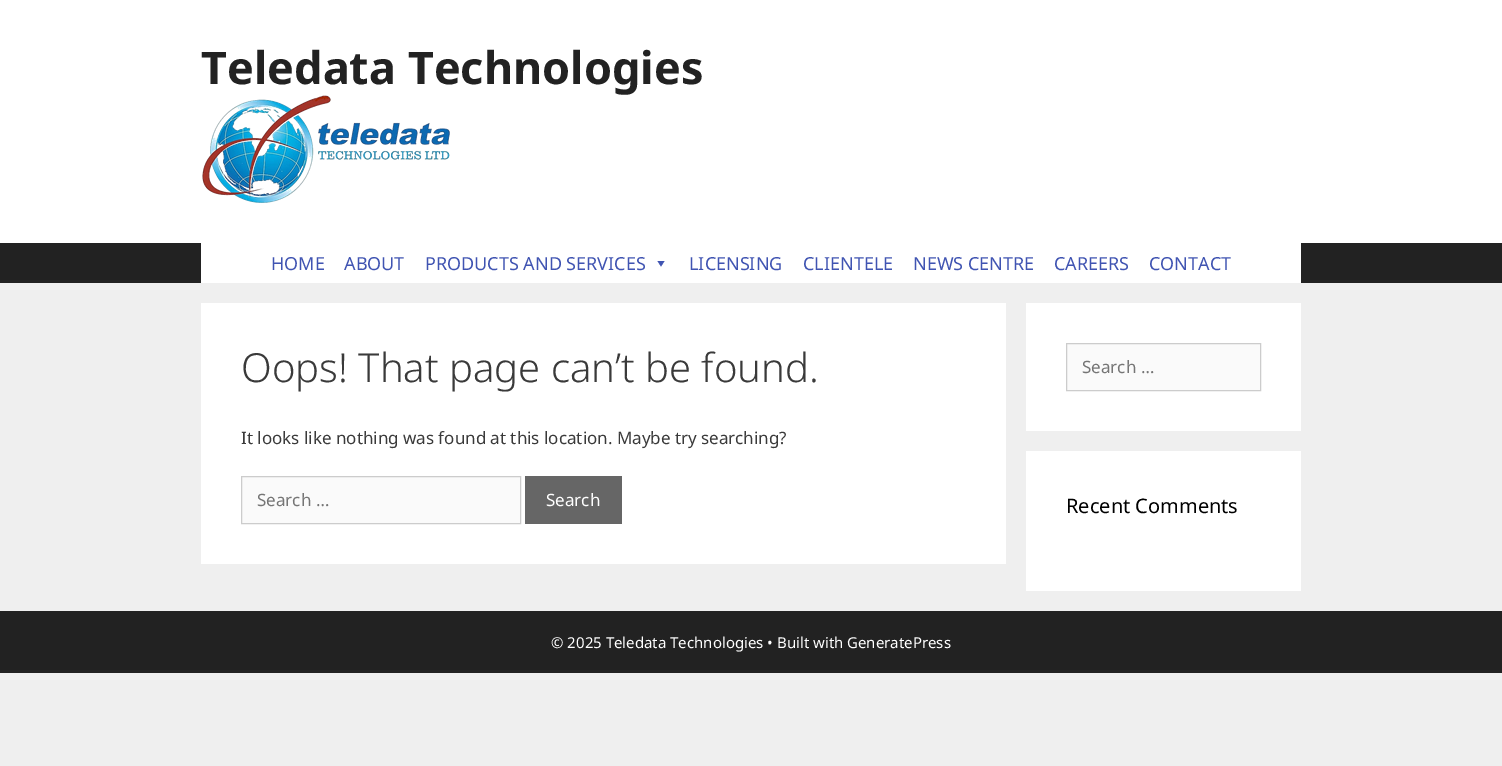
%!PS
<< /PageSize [1502 766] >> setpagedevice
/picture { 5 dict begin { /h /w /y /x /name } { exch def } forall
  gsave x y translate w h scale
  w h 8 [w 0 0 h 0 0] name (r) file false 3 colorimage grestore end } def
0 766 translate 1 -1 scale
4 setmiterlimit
0.937 setgray
0 0 1502 766 rectfill
1 setgray
0 0 1502 243 rectfill
/NotoSans-Bold [45 0 0 -45 0 0] selectfont
0.133 setgray
201 84 moveto (Teledata Technologies) show
(img1.rgb) 202 95 248 108 picture
0 243 1502 40 rectfill
1 setgray
201 243 1100 40 rectfill
/NotoSans-Regular [18 0 0 -18 0 0] selectfont
0.251 0.329 0.698 setrgbcolor
271 270 moveto (HOME) show
344 270 moveto (ABOUT) show
425 270 moveto (PRODUCTS AND SERVICES) show
newpath 664.5 261 moveto 661 266.5 lineto 657.5 261 lineto closepath fill
689 270 moveto (LICENSING) show
803 270 moveto (CLIENTELE) show
913 270 moveto (NEWS CENTRE) show
1054 270 moveto (CAREERS) show
1149 270 moveto (CONTACT) show
1 setgray
201 303 805 261 rectfill
/NotoSans-Light [40 0 0 -40 0 0] selectfont
0.227 setgray
241 382 moveto (Oops! That page can’t be found.) show
/NotoSans-Regular [17 0 0 -17 0 0] selectfont
241 444 moveto (It looks like nothing was found at this location. Maybe try searching?) show
0.98 setgray
newpath 241.5 476.5 moveto 520.5 476.5 lineto 520.5 523.5 lineto 241.5 523.5 lineto closepath gsave fill grestore
0.8 setgray
stroke
0.459 setgray
257 506 moveto (Search …) show
0.4 setgray
525 476 97 48 rectfill
1 setgray
546 506 moveto (Search) show
1026 303 275 128 rectfill
0.98 setgray
newpath 1066.5 343.5 moveto 1260.5 343.5 lineto 1260.5 390.5 lineto 1066.5 390.5 lineto closepath gsave fill grestore
0.8 setgray
stroke
0.459 setgray
1082 373 moveto (Search …) show
1 setgray
1026 451 275 140 rectfill
/NotoSans-Regular [20 0 0 -20 0 0] selectfont
0 setgray
1066 513 moveto (Recent Comments) show
0.133 setgray
0 611 1502 62 rectfill
/NotoSans-Regular [15 0 0 -15 0 0] selectfont
1 setgray
551 648 moveto (© 2025 Teledata Technologies • Built with GeneratePress) show
showpage
